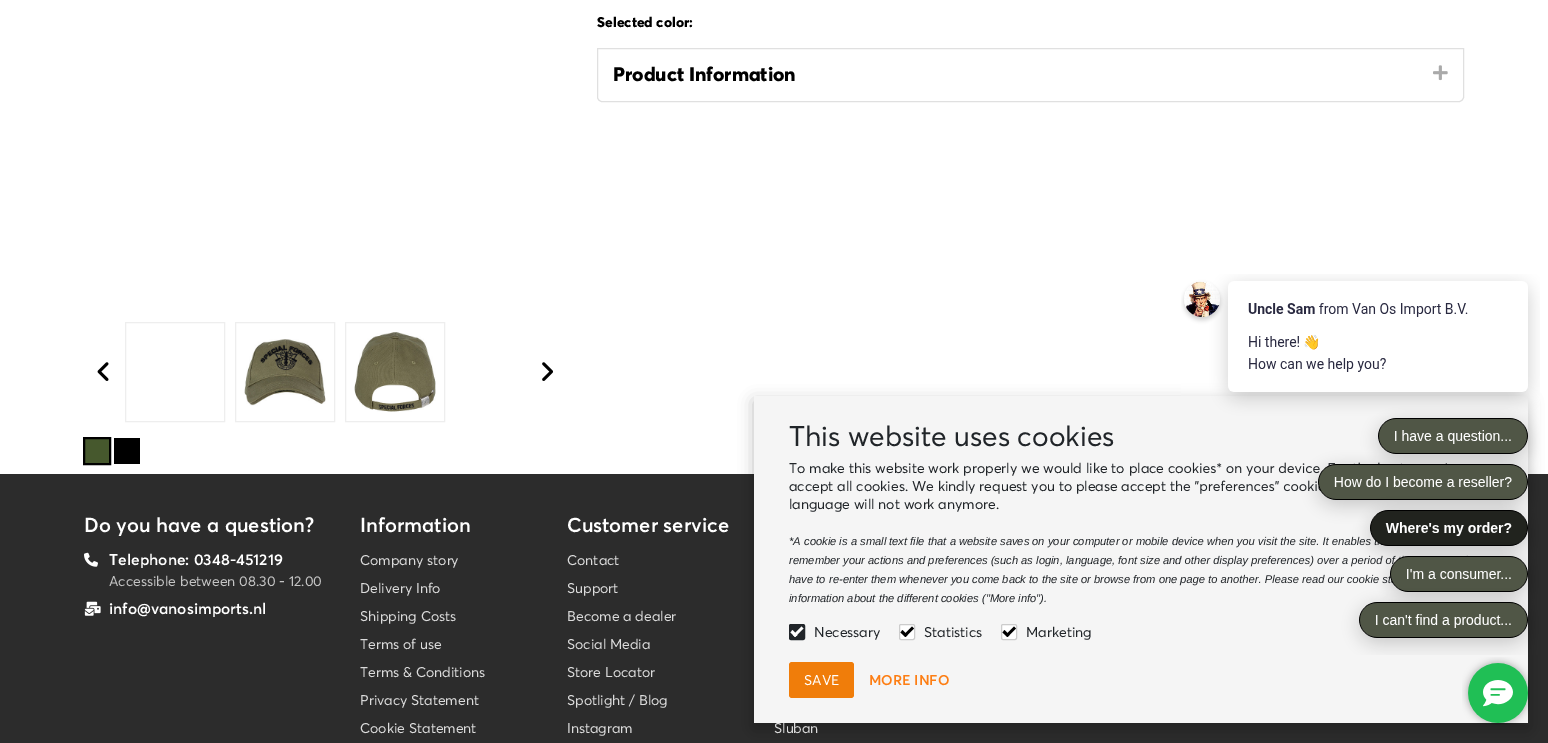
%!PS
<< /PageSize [1548 743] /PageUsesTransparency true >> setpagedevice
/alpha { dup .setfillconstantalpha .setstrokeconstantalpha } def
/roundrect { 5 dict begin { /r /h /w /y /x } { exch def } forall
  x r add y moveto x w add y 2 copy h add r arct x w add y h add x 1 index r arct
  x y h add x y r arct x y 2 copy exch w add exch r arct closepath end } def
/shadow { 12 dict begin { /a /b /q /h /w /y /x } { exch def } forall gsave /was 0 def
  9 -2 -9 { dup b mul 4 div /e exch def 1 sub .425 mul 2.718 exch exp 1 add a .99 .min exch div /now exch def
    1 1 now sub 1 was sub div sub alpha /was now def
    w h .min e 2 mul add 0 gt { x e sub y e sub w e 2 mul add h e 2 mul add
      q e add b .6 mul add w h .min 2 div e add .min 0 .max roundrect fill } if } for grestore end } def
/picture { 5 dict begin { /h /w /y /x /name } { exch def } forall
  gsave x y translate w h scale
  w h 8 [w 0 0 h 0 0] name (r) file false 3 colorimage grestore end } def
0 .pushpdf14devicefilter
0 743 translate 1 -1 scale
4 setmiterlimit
1 setgray
0 0 1548 743 rectfill
/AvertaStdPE-ExtraBold [14 0 0 -14 0 0] selectfont
0 setgray
597 27 moveto (Selected color:) show
0.878 setgray
newpath 597.5 48.5 moveto 1463.5 48.5 lineto 1463.5 97 lineto 1463.5 99.5 1461.5 101.5 1459 101.5 curveto 602 101.5 lineto 599.5 101.5 597.5 99.5 597.5 97 curveto closepath stroke
/AvertaStdPE-ExtraBold [19.5 0 0 -19.5 0 0] selectfont
0 setgray
613 81 moveto (Product Information) show
(img1.rgb) 1433 65 15 16 picture
(img2.rgb) 97 362 12 19 picture
0.933 setgray
125.5 322.5 99 99 rectstroke
235.5 322.5 99 99 rectstroke
(img3.rgb) 244 339 82 67 picture
345.5 322.5 99 99 rectstroke
(img4.rgb) 354 332 82 80 picture
(img5.rgb) 542 362 11 19 picture
0.275 0.345 0.176 setrgbcolor
newpath 84.5 438.5 moveto 109.5 438.5 lineto 109.5 463.5 lineto 84.5 463.5 lineto closepath gsave fill grestore
0 setgray
stroke
83.5 437.5 27 27 rectstroke
114 438 26 26 rectfill
0.173 setgray
0 474 1548 269 rectfill
0 setgray
754 401 774 327 0 7.5 0.25 shadow
/AvertaStdPE-Regular [14 0 0 -14 0 0] selectfont
0.859 setgray
774 733 moveto (Sluban) show
0.961 setgray
754 396 774 327 rectfill
0.129 0.145 0.161 setrgbcolor
789 473 moveto (To make this website work properly we would like to place cookies* on your device) show
789 491 moveto (accept all cookies. We kindly request you to please accept the "preferences" cooki) show
/LiberationSans-Italic [11.2 0 0 -11.2 0 0] selectfont
789 545 moveto (*A cookie is a small text file that a website saves on your computer or mobile device when you visit the site. It enables t) show
789 564 moveto (remember your actions and preferences \(such as login, language, font size and other display preferences\) over a period of) show
789 583 moveto (have to re-enter them whenever you come back to the site or browse from one page to another. Please read our cookie st) show
(img6.rgb) 1181 274 359 381 picture
(img7.rgb) 1462 657 68 68 picture
/AvertaStdPE-SemiBold [20 0 0 -20 0 0] selectfont
1 setgray
84 532 moveto (Do you have a question?) show
(img8.rgb) 84 552 14 15 picture
/AvertaStdPE-SemiBold [15.4 0 0 -15.4 0 0] selectfont
109 565 moveto (Telephone: 0348-451219) show
/AvertaStdPE-Regular [14 0 0 -14 0 0] selectfont
0.769 setgray
109 586 moveto (Accessible between 08.30 - 12.00) show
(img9.rgb) 84 601 17 15 picture
/AvertaStdPE-SemiBold [15.4 0 0 -15.4 0 0] selectfont
1 setgray
109 614 moveto (info@vanosimports.nl) show
/AvertaStdPE-SemiBold [20 0 0 -20 0 0] selectfont
360 532 moveto (Information) show
/AvertaStdPE-Regular [14 0 0 -14 0 0] selectfont
0.859 setgray
360 565 moveto (Company story) show
360 593 moveto (Delivery Info) show
360 621 moveto (Shipping Costs) show
360 649 moveto (Terms of use) show
360 677 moveto (Terms & Conditions) show
360 705 moveto (Privacy Statement) show
360 733 moveto (Cookie Statement) show
/AvertaStdPE-SemiBold [20 0 0 -20 0 0] selectfont
1 setgray
567 532 moveto (Customer service) show
/AvertaStdPE-Regular [14 0 0 -14 0 0] selectfont
0.859 setgray
567 565 moveto (Contact) show
567 593 moveto (Support) show
567 621 moveto (Become a dealer) show
567 649 moveto (Social Media) show
567 677 moveto (Store Locator) show
567 705 moveto (Spotlight / Blog) show
567 733 moveto (Instagram) show
/AvertaStdPE-Regular [28 0 0 -28 0 0] selectfont
0.129 0.145 0.161 setrgbcolor
789 446 moveto (This website uses cookies) show
/AvertaStdPE-Regular [14 0 0 -14 0 0] selectfont
789 509 moveto (language will not work anymore.) show
/LiberationSans-Italic [11.2 0 0 -11.2 0 0] selectfont
789 602 moveto (information about the different cookies \("More info"\).) show
789.5 624.5 15 15 1.5 roundrect gsave fill grestore
stroke
1 setgray
newpath 793 635 moveto 801.5 626.5 lineto 803.5 628.5 lineto 795 637 lineto closepath fill
newpath 790.5 632.5 moveto 792.5 630 lineto 797.5 635 lineto 795 637 lineto closepath fill
/AvertaStdPE-Regular [14 0 0 -14 0 0] selectfont
0.129 0.145 0.161 setrgbcolor
814 637 moveto (Necessary) show
1 setgray
899.5 624.5 15 15 1.5 roundrect gsave fill grestore
0.8 setgray
stroke
0 setgray
newpath 903.5 635 moveto 912 626.5 lineto 914 628.5 lineto 905.5 637 lineto closepath fill
newpath 900.5 632.5 moveto 902.5 630 lineto 907.5 635 lineto 905.5 637 lineto closepath fill
0.129 0.145 0.161 setrgbcolor
924 637 moveto (Statistics) show
1 setgray
1001.5 624.5 15 15 1.5 roundrect gsave fill grestore
0.8 setgray
stroke
0 setgray
newpath 1005.5 635 moveto 1014 626.5 lineto 1016 628.5 lineto 1007.5 637 lineto closepath fill
newpath 1002.5 632.5 moveto 1004.5 630 lineto 1009.5 635 lineto 1007.5 637 lineto closepath fill
0.129 0.145 0.161 setrgbcolor
1026 637 moveto (Marketing) show
0.941 0.49 0.039 setrgbcolor
789 662 65 36 3 roundrect fill
1 setgray
804 685 moveto (SAVE) show
/AvertaStdPE-SemiBold [14 0 0 -14 0 0] selectfont
0.992 0.494 0.078 setrgbcolor
869 685 moveto (MORE INFO) show
.poppdf14devicefilter showpage
